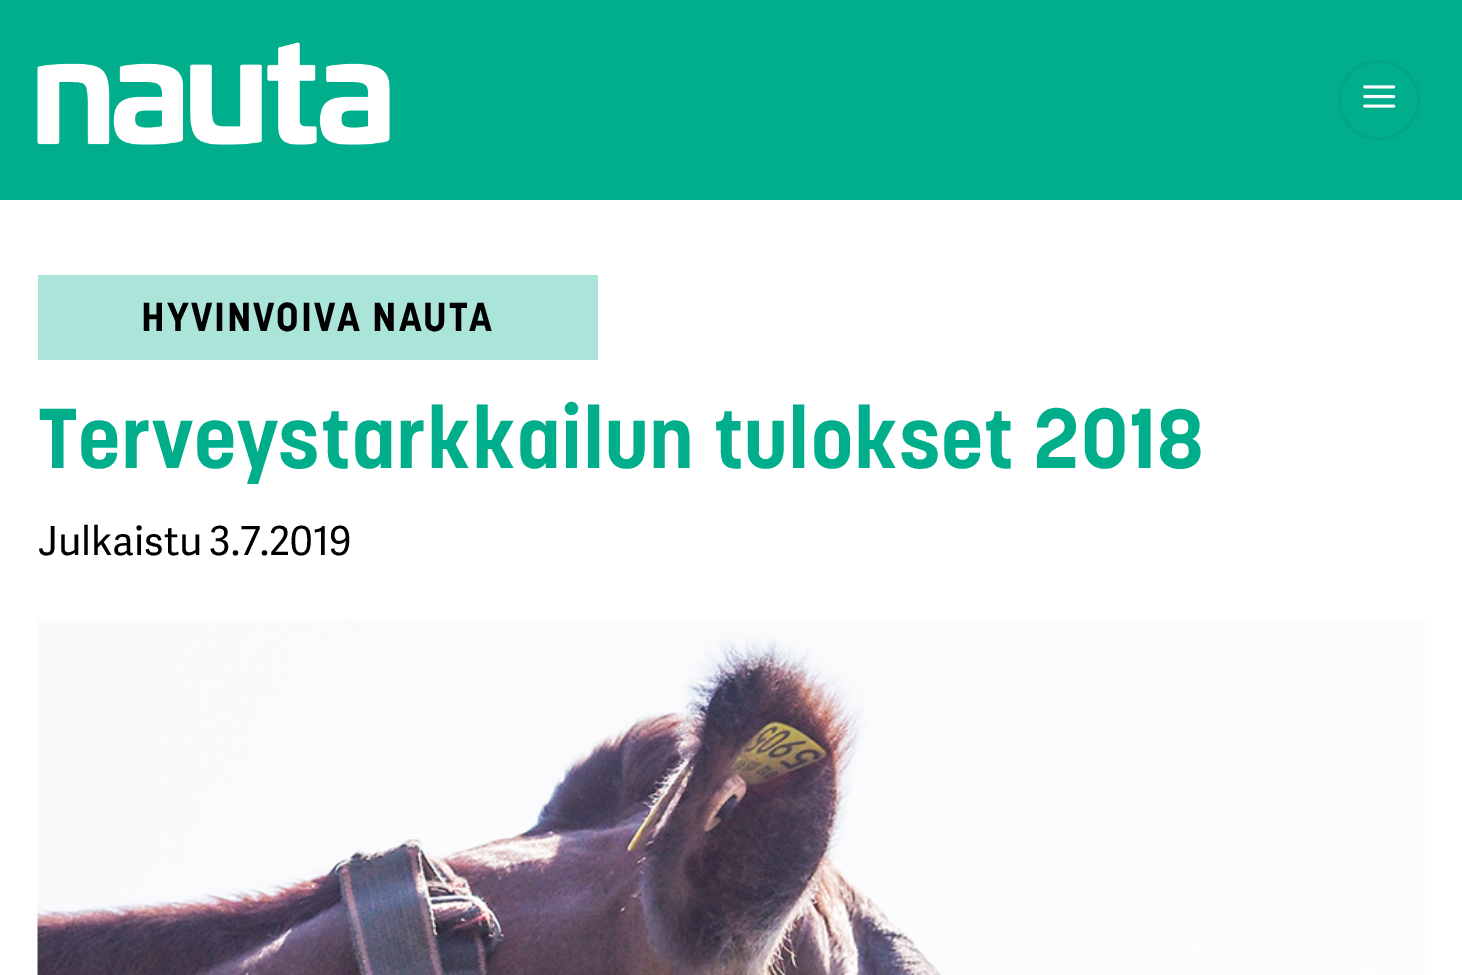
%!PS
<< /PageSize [1462 975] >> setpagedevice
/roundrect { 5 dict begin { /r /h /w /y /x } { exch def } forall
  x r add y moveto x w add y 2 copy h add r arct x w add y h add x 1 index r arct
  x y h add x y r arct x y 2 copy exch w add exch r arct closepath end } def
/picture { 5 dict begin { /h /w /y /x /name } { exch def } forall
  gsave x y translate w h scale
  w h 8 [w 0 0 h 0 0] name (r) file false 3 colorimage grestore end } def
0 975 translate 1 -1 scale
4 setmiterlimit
1 setgray
0 0 1462 975 rectfill
0 0.682 0.549 setrgbcolor
0 0 1462 200 rectfill
(img1.rgb) 37 42 353 103 picture
0 0.647 0.522 setrgbcolor
3 setlinewidth
1339.5 61.5 79 77 38.5 roundrect stroke
(img2.rgb) 1363 85 33 23 picture
0.671 0.894 0.851 setrgbcolor
38 275 560 85 rectfill
/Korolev-Bold [40 0 0 -40 0 0] selectfont
0 setgray
141 331 moveto 2 0 (HYVINVOIVA NAUTA) ashow
/Korolev-Bold [84 0 0 -84 0 0] selectfont
0 0.682 0.549 setrgbcolor
38 468 moveto 0.85 0 (Terveystarkkailun tulokset 2018) ashow
/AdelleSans-Regular [40 0 0 -40 0 0] selectfont
0 setgray
38 555 moveto (Julkaistu) show
209 555 moveto (3.7.2019) show
(img3.rgb) 37 620 1388 355 picture
showpage
